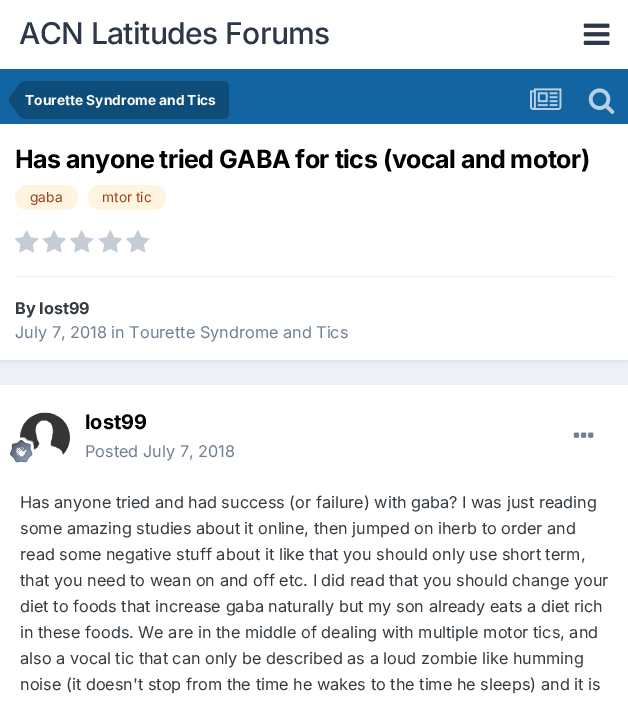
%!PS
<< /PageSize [628 701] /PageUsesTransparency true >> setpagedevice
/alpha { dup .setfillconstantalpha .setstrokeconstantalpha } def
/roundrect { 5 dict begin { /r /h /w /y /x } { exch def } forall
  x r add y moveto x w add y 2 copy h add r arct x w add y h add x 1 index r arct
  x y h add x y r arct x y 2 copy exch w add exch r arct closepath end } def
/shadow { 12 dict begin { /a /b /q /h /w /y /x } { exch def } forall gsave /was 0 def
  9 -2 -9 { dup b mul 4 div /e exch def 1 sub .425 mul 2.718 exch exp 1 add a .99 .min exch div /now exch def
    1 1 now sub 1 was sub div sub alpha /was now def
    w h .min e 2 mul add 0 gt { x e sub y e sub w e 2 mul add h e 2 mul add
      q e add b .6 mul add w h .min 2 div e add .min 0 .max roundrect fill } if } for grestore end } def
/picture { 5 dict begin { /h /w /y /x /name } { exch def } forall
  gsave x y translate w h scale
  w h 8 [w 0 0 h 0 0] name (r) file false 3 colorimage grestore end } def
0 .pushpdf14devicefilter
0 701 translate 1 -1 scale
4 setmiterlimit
0.929 0.941 0.957 setrgbcolor
0 0 628 701 rectfill
1 setgray
0 0 628 69 rectfill
/Inter-Medium [30 0 0 -30 0 0] selectfont
0.176 0.216 0.282 setrgbcolor
19 44 moveto -0.6 0 (ACN Latitudes Forums) ashow
(img1.rgb) 583 23 27 22 picture
0.071 0.396 0.631 setrgbcolor
0 69 628 55 rectfill
0.055 0.298 0.475 setrgbcolor
newpath 25 81 moveto 223 81 lineto 226.5 81 229 83.5 229 87 curveto 229 113 lineto 229 116.5 226.5 119 223 119 curveto 25 119 lineto closepath fill
newpath 25 100 moveto 25 118.5 lineto 19.5 118.5 16.5 112 14 108.5 curveto 12 106 9 103.5 9 100 curveto closepath 25 100 moveto 9 100 lineto 9 96.5 12 94 14 91.5 curveto 16.5 88 19.5 81.5 25 81.5 curveto closepath fill
/Inter-Bold [13.75 0 0 -13.75 0 0] selectfont
1 setgray
25 105 moveto (Tourette Syndrome and Tics) show
(img2.rgb) 530 88 32 22 picture
(img3.rgb) 588 88 27 26 picture
0.176 0.216 0.282 setrgbcolor
1 128 627 233 0 2.5 0.1 shadow
1 setgray
0 124 628 236 rectfill
/Inter-Bold [25 0 0 -25 0 0] selectfont
0 setgray
15 168 moveto -0.5 0 (Has anyone tried GABA for tics \(vocal and motor\)) ashow
1 0.957 0.875 setrgbcolor
15 185 63 25 12.5 roundrect fill
/Inter-Regular [13.75 0 0 -13.75 0 0] selectfont
0.612 0.259 0.129 setrgbcolor
30 202 moveto (gaba) show
1 0.957 0.875 setrgbcolor
88 185 78 25 12.5 roundrect fill
gsave
103 185 48 25 rectclip
0.612 0.259 0.129 setrgbcolor
102 202 moveto (mtor tic) show
grestore
(img4.rgb) 15 230 24 23 picture
(img5.rgb) 42 230 24 23 picture
(img4.rgb) 70 230 24 23 picture
(img6.rgb) 98 230 24 23 picture
(img7.rgb) 126 230 24 23 picture
0.937 0.937 0.941 setrgbcolor
15 276 599 1 rectfill
/Inter-Bold [16.25 0 0 -16.25 0 0] selectfont
0.208 0.235 0.255 setrgbcolor
15 314 moveto (By lost99) show
/Inter-Regular [16.25 0 0 -16.25 0 0] selectfont
0.443 0.502 0.588 setrgbcolor
15 338 moveto (July 7, 2018 in Tourette Syndrome and Tics) show
1 setgray
0 385 628 316 rectfill
(img8.rgb) 20 412 50 43 picture
(img9.rgb) 10 437 25 26 picture
/Inter-Bold [20 0 0 -20 0 0] selectfont
0 setgray
85 429 moveto (lost99) show
/Inter-Regular [16.25 0 0 -16.25 0 0] selectfont
0.443 0.502 0.588 setrgbcolor
85 457 moveto (Posted July 7, 2018) show
(img10.rgb) 573 432 21 6 picture
0.208 0.235 0.255 setrgbcolor
20 508 moveto (Has anyone tried and had success \(or failure\) with gaba? I was just reading) show
20 534 moveto (some amazing studies about it online, then jumped on iherb to order and) show
20 560 moveto (read some negative stuff about it like that you should only use short term,) show
20 586 moveto (that you need to wean on and off etc. I did read that you should change your) show
20 612 moveto (diet to foods that increase gaba naturally but my son already eats a diet rich) show
20 638 moveto (in these foods. We are in the middle of dealing with multiple motor tics, and) show
20 664 moveto (also a vocal tic that can only be described as a loud zombie like humming) show
20 690 moveto (noise \(it doesn't stop from the time he wakes to the time he sleeps\) and it is) show
.poppdf14devicefilter showpage
